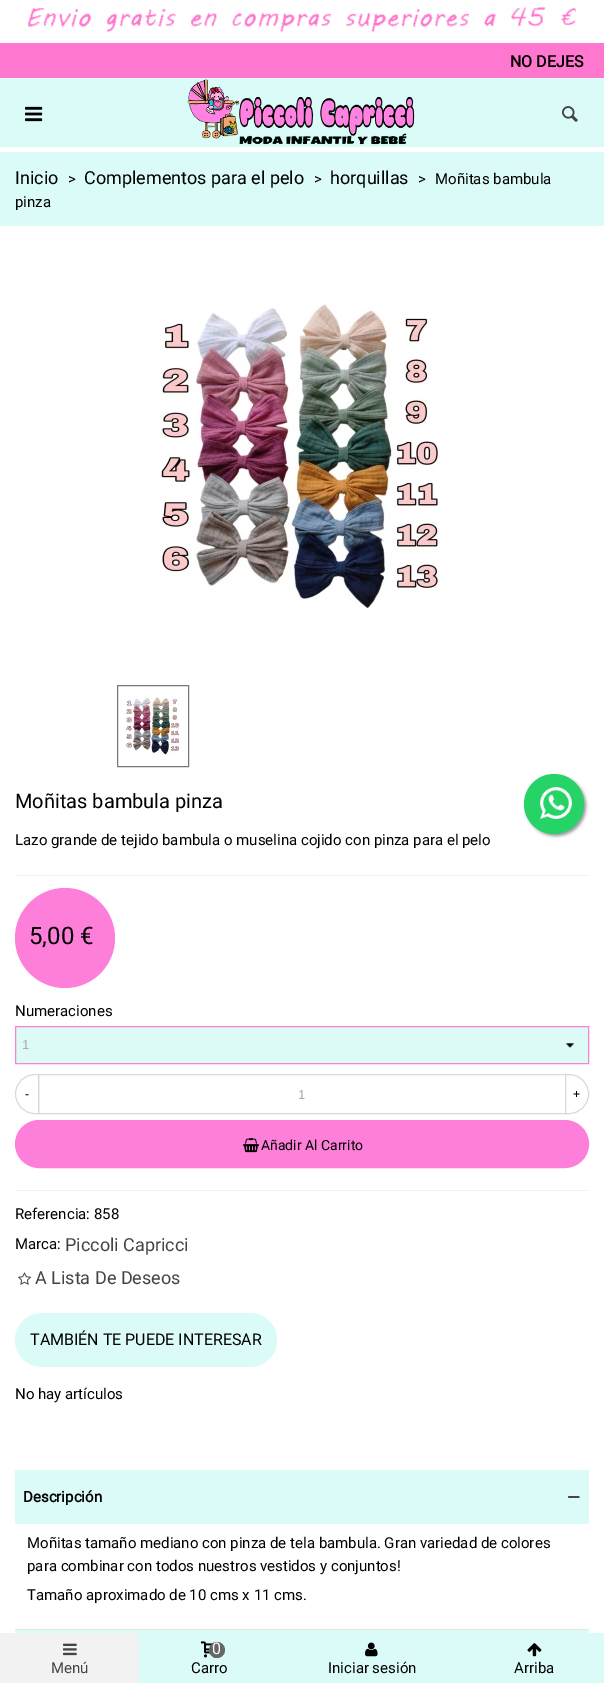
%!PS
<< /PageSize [604 1683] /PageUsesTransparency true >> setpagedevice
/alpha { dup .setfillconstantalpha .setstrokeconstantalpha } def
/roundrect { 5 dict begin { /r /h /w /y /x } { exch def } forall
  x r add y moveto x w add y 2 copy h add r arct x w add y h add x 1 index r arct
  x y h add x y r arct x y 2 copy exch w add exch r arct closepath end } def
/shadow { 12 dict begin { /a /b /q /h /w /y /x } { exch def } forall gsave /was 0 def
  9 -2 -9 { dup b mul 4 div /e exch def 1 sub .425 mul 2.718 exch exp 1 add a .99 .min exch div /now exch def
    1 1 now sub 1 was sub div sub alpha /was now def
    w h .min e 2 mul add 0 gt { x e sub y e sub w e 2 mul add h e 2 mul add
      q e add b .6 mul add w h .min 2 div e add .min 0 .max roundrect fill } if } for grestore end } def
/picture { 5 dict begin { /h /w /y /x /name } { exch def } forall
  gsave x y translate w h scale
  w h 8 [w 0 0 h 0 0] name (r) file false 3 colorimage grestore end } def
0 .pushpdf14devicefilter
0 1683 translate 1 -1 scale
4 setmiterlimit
1 setgray
0 0 604 1683 rectfill
(img1.rgb) 28 7 548 25 picture
1 0.467 0.808 setrgbcolor
0 43 604 35 rectfill
/Roboto-Bold [16 0 0 -16 0 0] selectfont
0 setgray
510 67 moveto (NO DEJES) show
0.855 0.984 0.969 setrgbcolor
0 78 604 69 rectfill
(img2.rgb) 25 106 18 16 picture
(img3.rgb) 187 79 228 66 picture
(img4.rgb) 562 106 16 16 picture
0 152 604 74 rectfill
/Roboto-Regular [18 0 0 -18 0 0] selectfont
0 setgray
15 184 moveto (Inicio) show
/Roboto-Regular [15 0 0 -15 0 0] selectfont
68 184 moveto (>) show
/Roboto-Regular [18 0 0 -18 0 0] selectfont
84 184 moveto (Complementos para el pelo) show
/Roboto-Regular [15 0 0 -15 0 0] selectfont
314 184 moveto (>) show
/Roboto-Regular [18 0 0 -18 0 0] selectfont
330 184 moveto (horquillas) show
/Roboto-Regular [15 0 0 -15 0 0] selectfont
418 184 moveto (>) show
435 184 moveto (Moñitas bambula) show
15 207 moveto (pinza) show
(img5.rgb) 159 304 282 305 picture
0.467 setgray
117.5 685.5 71 81 rectstroke
(img6.rgb) 126 697 56 59 picture
/Roboto-Regular [20 0 0 -20 0 0] selectfont
0 setgray
15 808 moveto (Moñitas bambula pinza) show
/Roboto-Regular [15 0 0 -15 0 0] selectfont
15 845 moveto (Lazo grande de tejido bambula o muselina cojido con pinza para el pelo) show
0.949 setgray
15 875 574 1 rectfill
0.996 0.498 0.851 setrgbcolor
newpath 65 938 50 0 360 arc closepath fill
/Roboto-Regular [24 0 0 -24 0 0] selectfont
0 setgray
29 944 moveto (5,00 €) show
/Roboto-Regular [15 0 0 -15 0 0] selectfont
15 1016 moveto (Numeraciones) show
0.863 0.984 0.969 setrgbcolor
16 1027 572 36 rectfill
(img7.rgb) 566 1043 9 5 picture
0.996 0.498 0.851 setrgbcolor
15.5 1026.5 573 37 rectstroke
/LiberationSans-Regular [13 0 0 -13 0 0] selectfont
0.675 0.667 0.651 setrgbcolor
22 1049 moveto (1) show
0.851 setgray
newpath 35 1074.5 moveto 38.5 1074.5 lineto 38.5 1113.5 lineto 35 1113.5 lineto 24 1113.5 15.5 1105 15.5 1094 curveto 15.5 1083 24 1074.5 35 1074.5 curveto closepath stroke
/LiberationSans-Regular [12 0 0 -12 0 0] selectfont
0 setgray
25 1098 moveto (-) show
0.851 setgray
38.5 1074.5 527 39 rectstroke
/LiberationSans-Regular [13 0 0 -13 0 0] selectfont
0.675 0.667 0.651 setrgbcolor
298 1099 moveto (1) show
1 setgray
newpath 565.5 1074.5 moveto 569 1074.5 lineto 580 1074.5 588.5 1083 588.5 1094 curveto 588.5 1105 580 1113.5 569 1113.5 curveto 565.5 1113.5 lineto closepath gsave fill grestore
0.851 setgray
stroke
/LiberationSans-Regular [12 0 0 -12 0 0] selectfont
0 setgray
573 1098 moveto (+) show
0.996 0.498 0.851 setrgbcolor
16 1121 572 46 23 roundrect gsave fill grestore
2 setlinewidth
stroke
(img8.rgb) 243 1138 16 15 picture
/Roboto-Regular [14 0 0 -14 0 0] selectfont
0 setgray
261 1150 moveto (Añadir Al Carrito) show
0.949 setgray
15 1190 574 1 rectfill
/Roboto-Regular [15 0 0 -15 0 0] selectfont
0 setgray
15 1219 moveto (Referencia: 858) show
15 1249 moveto (Marca:) show
/Roboto-Regular [18 0 0 -18 0 0] selectfont
0.267 setgray
65 1251 moveto (Piccoli Capricci) show
(img9.rgb) 18 1272 13 13 picture
35 1284 moveto (A Lista De Deseos) show
0.855 0.984 0.969 setrgbcolor
15 1313 262 54 27 roundrect fill
/Roboto-Regular [16 0 0 -16 0 0] selectfont
0 setgray
30 1345 moveto (TAMBIÉN TE PUEDE INTERESAR) show
/Roboto-Regular [15 0 0 -15 0 0] selectfont
15 1399 moveto (No hay artículos) show
0.898 setgray
15 1629 574 1 rectfill
0.855 0.984 0.969 setrgbcolor
15 1470 574 54 rectfill
/Roboto-Bold [15 0 0 -15 0 0] selectfont
0 setgray
23 1502 moveto (Descripción) show
(img10.rgb) 568 1496 12 2 picture
/Roboto-Regular [15 0 0 -15 0 0] selectfont
27 1548 moveto (Moñitas tamaño mediano con pinza de tela bambula. Gran variedad de colores) show
27 1571 moveto (para combinar con todos nuestros vestidos y conjuntos!) show
27 1600 moveto (Tamaño aproximado de 10 cms x 11 cms.) show
0.855 0.984 0.969 setrgbcolor
15 1630 574 3 rectfill
0.949 setgray
0 1633 139 50 rectfill
(img11.rgb) 63 1643 14 13 picture
0.267 setgray
51 1673 moveto (Menú) show
0.855 0.984 0.969 setrgbcolor
139 1633 465 50 rectfill
(img12.rgb) 201 1641 15 17 picture
0.4 setgray
newpath 217 1650 8 0 360 arc closepath fill
/Roboto-Regular [16 0 0 -16 0 0] selectfont
1 setgray
212 1654 moveto (0) show
/Roboto-Regular [15 0 0 -15 0 0] selectfont
0 setgray
191 1673 moveto (Carro) show
(img13.rgb) 365 1642 13 15 picture
328 1673 moveto (Iniciar sesión) show
(img14.rgb) 527 1643 15 14 picture
514 1673 moveto (Arriba) show
0.6 setgray
526 776 60 60 30 1.5 1 shadow
0.145 0.827 0.4 setrgbcolor
newpath 554 804 30 0 360 arc closepath fill
(img15.rgb) 540 787 32 32 picture
.poppdf14devicefilter showpage
